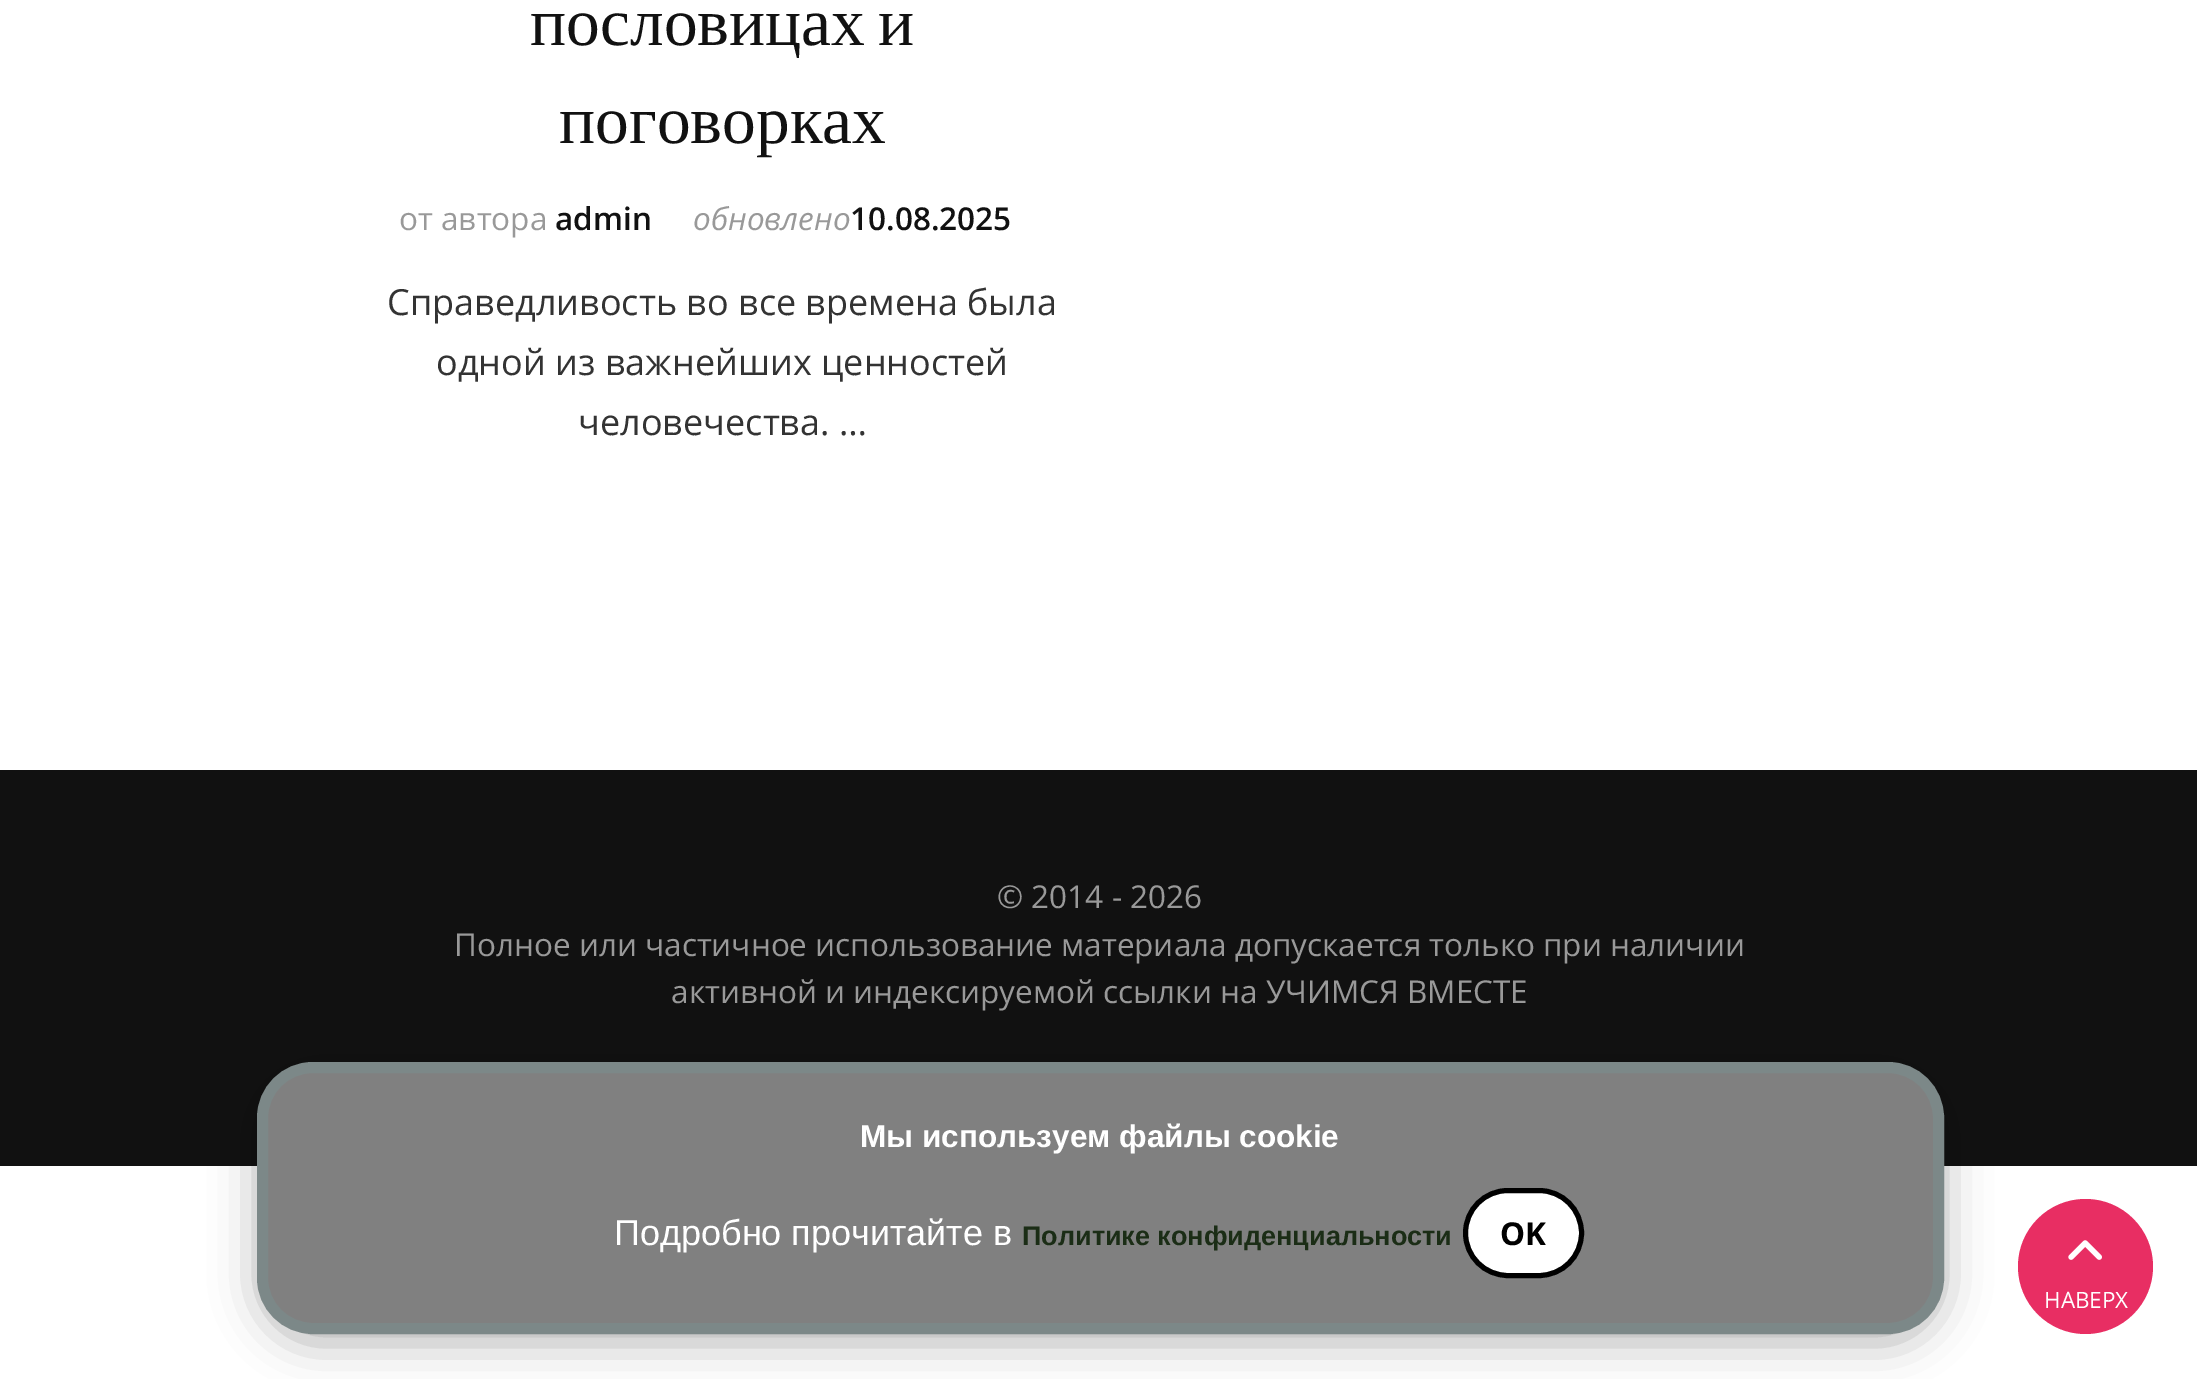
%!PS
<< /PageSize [2197 1379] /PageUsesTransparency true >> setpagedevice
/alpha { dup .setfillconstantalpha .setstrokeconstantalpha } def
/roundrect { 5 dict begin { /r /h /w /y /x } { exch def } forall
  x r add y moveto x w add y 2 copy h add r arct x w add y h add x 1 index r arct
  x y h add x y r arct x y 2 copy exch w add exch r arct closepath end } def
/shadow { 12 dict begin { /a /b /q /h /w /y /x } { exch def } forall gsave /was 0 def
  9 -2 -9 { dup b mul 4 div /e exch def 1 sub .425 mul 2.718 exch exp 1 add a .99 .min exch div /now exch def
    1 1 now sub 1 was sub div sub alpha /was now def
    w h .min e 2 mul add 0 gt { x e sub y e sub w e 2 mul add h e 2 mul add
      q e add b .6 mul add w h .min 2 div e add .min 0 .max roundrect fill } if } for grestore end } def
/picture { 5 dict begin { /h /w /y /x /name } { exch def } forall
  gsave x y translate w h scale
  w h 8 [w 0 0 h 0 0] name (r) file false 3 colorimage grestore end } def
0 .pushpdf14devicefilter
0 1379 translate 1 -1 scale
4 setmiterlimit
1 setgray
0 0 2197 1379 rectfill
/LiberationSerif-Regular [67.5 0 0 -67.5 0 0] selectfont
0.067 setgray
530 45 moveto -4 0 32 (пословицах и) widthshow
559 143 moveto (поговорках) show
/OpenSans-Regular [31.5 0 0 -31.5 0 0] selectfont
0.6 setgray
399 230 moveto (от автора) show
/OpenSans-SemiBold [31.5 0 0 -31.5 0 0] selectfont
0.067 setgray
555 230 moveto (admin) show
/OpenSans-Italic [31.5 0 0 -31.5 0 0] selectfont
0.6 setgray
693 230 moveto (обновлено) show
/OpenSans-SemiBold [31.5 0 0 -31.5 0 0] selectfont
0.067 setgray
850 230 moveto (10.08.2025) show
/OpenSans-Regular [36 0 0 -36 0 0] selectfont
0.2 setgray
387 315 moveto (Справедливость во все времена была) show
436 375 moveto (одной из важнейших ценностей) show
578 435 moveto (человечества. …) show
0.067 setgray
0 770 2197 396 rectfill
0 setgray
257 1071 1687 272 56 22.5 0.3 shadow
0.502 setgray
262.5 1067.5 1676 261 50.5 roundrect gsave fill grestore
0.486 0.533 0.533 setrgbcolor
11 setlinewidth
stroke
/LiberationSans-Bold [31.5 0 0 -31.5 0 0] selectfont
1 setgray
860 1147 moveto (Мы используем файлы cookie) show
/LiberationSans-Regular [36 0 0 -36 0 0] selectfont
614 1245 moveto (Подробно прочитайте в) show
/LiberationSans-Bold [27 0 0 -27 0 0] selectfont
0.106 0.176 0.086 setrgbcolor
1022 1245 moveto (Политике конфиденциальности) show
1 setgray
1465.5 1190.5 116 85 42.5 roundrect gsave fill grestore
0 setgray
5 setlinewidth
stroke
/OpenSans-Bold [31.5 0 0 -31.5 0 0] selectfont
1500 1245 moveto (OK) show
/OpenSans-Regular [31.5 0 0 -31.5 0 0] selectfont
0.6 setgray
997 908 moveto (© 2014 - 2026) show
454 956 moveto (Полное или частичное использование материала допускается только при наличии) show
671 1003 moveto (активной и индексируемой ссылки на УЧИМСЯ ВМЕСТЕ) show
0.91 0.18 0.388 setrgbcolor
newpath 2085.5 1266.5 67.5 0 360 arc closepath fill
(img1.rgb) 2068 1240 34 20 picture
/OpenSans-Regular [22.5 0 0 -22.5 0 0] selectfont
1 setgray
2044 1308 moveto (НАВЕРХ) show
.poppdf14devicefilter showpage
